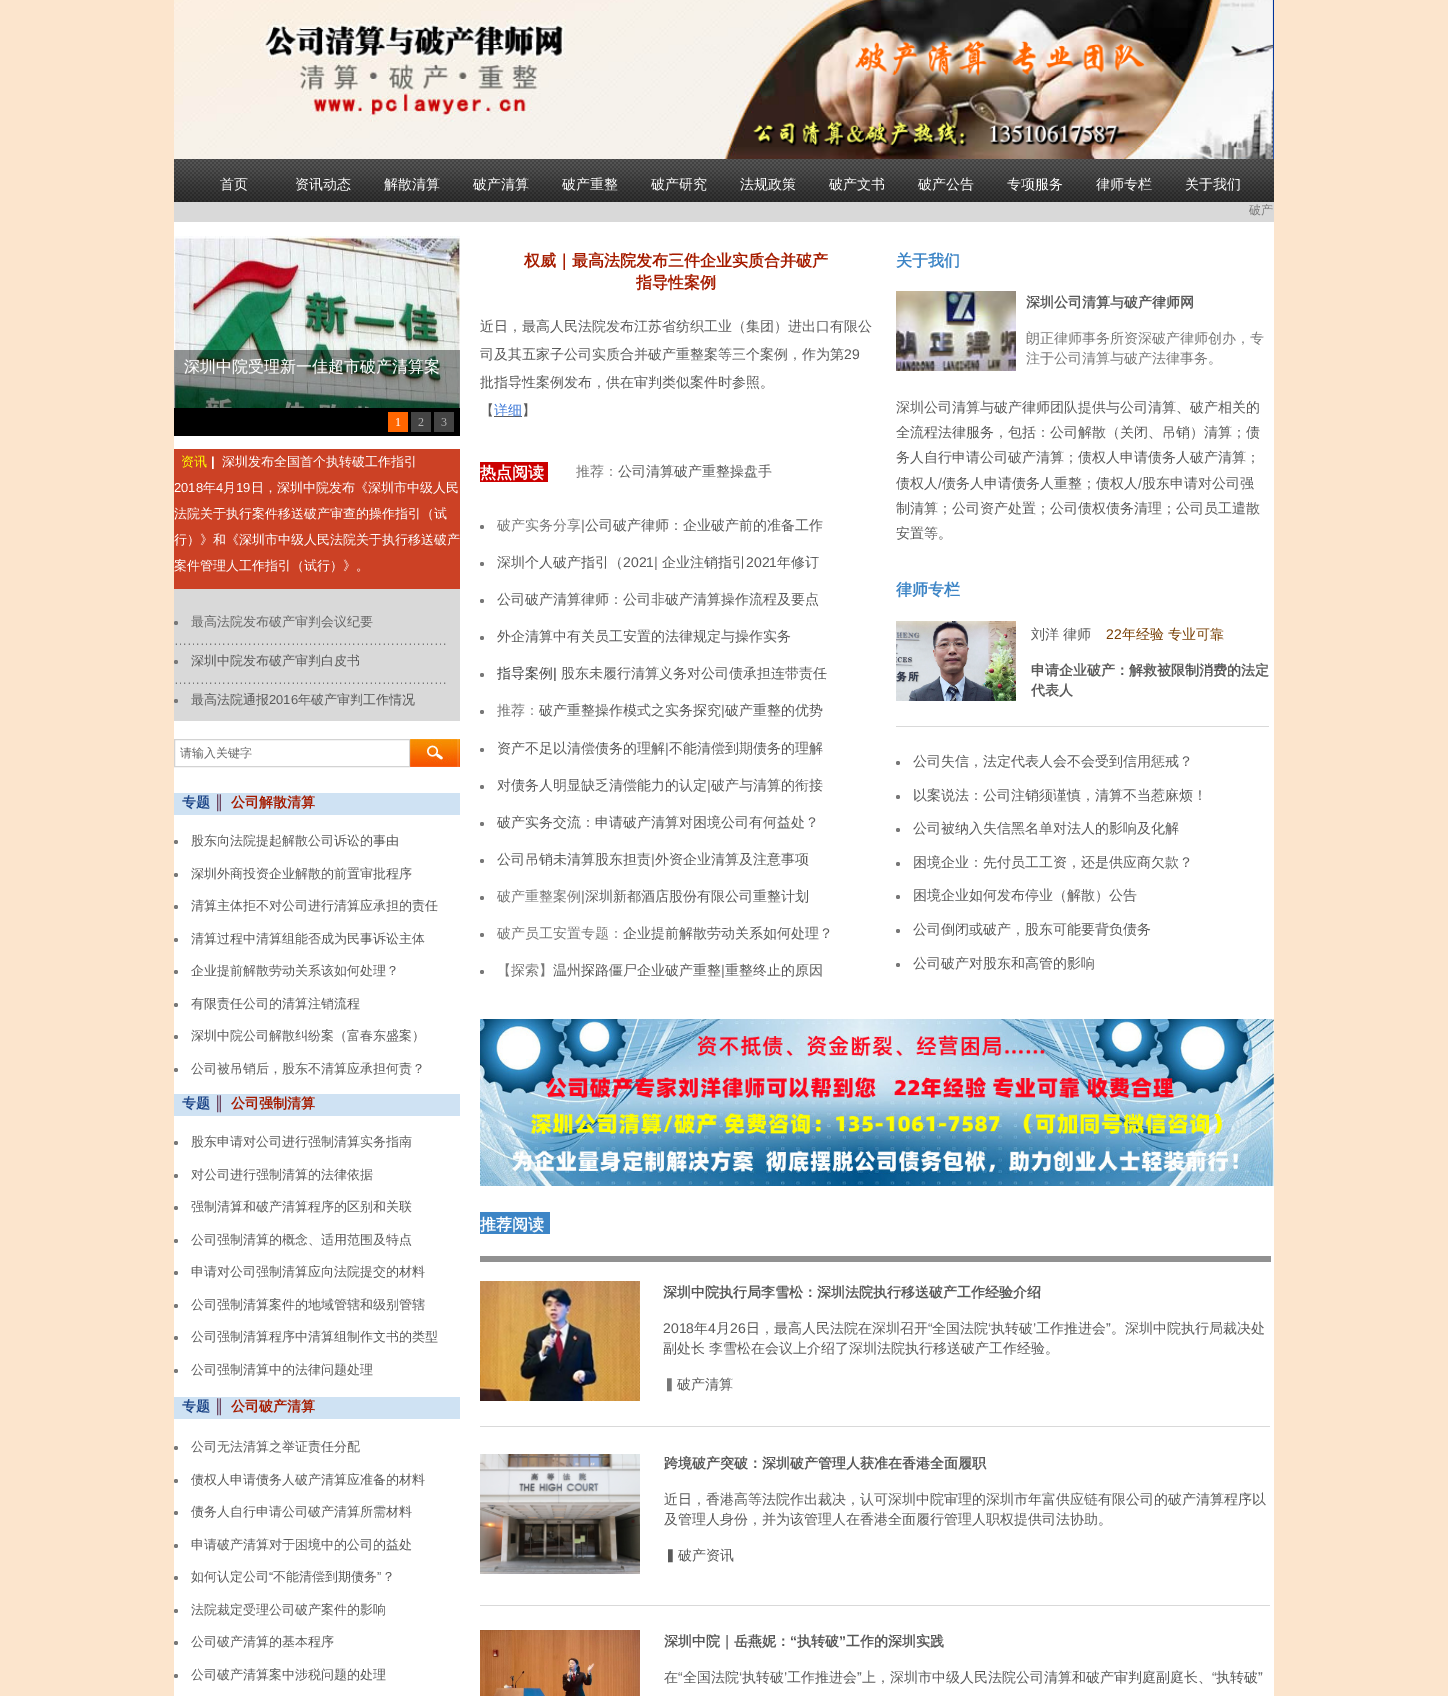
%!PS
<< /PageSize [1448 1696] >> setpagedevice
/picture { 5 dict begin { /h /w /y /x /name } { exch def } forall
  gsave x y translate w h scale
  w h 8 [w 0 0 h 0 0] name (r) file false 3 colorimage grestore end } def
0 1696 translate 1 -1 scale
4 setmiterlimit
0.988 0.898 0.804 setrgbcolor
0 0 1448 1696 rectfill
1 setgray
174 222 1100 1474 rectfill
(img1.rgb) 174 0 1100 159 picture
(img2.rgb) 174 159 1100 43 picture
/WenQuanYiZenHei-Medium [14 0 0 -14 0 0] selectfont
220 189 moveto (首页) show
295 189 moveto (资讯动态) show
384 189 moveto (解散清算) show
473 189 moveto (破产清算) show
562 189 moveto (破产重整) show
651 189 moveto (破产研究) show
740 189 moveto (法规政策) show
829 189 moveto (破产文书) show
918 189 moveto (破产公告) show
1007 189 moveto (专项服务) show
1096 189 moveto (律师专栏) show
1185 189 moveto (关于我们) show
0.851 setgray
174 202 1100 20 rectfill
/WenQuanYiZenHei-Medium [12 0 0 -12 0 0] selectfont
0.471 setgray
1249 214 moveto (破产) show
(img3.rgb) 174 236 286 200 picture
/WenQuanYiZenHei-Bold [16 0 0 -16 0 0] selectfont
0.651 0.11 0 setrgbcolor
524 266 moveto (权威｜最高法院发布三件企业实质合并破产) show
636 288 moveto (指导性案例) show
/WenQuanYiZenHei-Medium [14 0 0 -14 0 0] selectfont
0.353 setgray
480 331 moveto (近日，最高人民法院发布江苏省纺织工业（集团）进出口有限公) show
480 359 moveto (司及其五家子公司实质合并破产重整案等三个案例，作为第) show
/LiberationSans-Regular [14 0 0 -14 0 0] selectfont
844 359 moveto (29) show
/WenQuanYiZenHei-Medium [14 0 0 -14 0 0] selectfont
480 387 moveto (批指导性案例发布，供在审判类似案件时参照。) show
480 415 moveto (【) show
494 416 28 1 rectfill
0.235 0.471 0.847 setrgbcolor
494 415 moveto (详细) show
0.353 setgray
522 415 moveto (】) show
/WenQuanYiZenHei-Bold [16 0 0 -16 0 0] selectfont
0.239 0.522 0.776 setrgbcolor
896 266 moveto (关于我们) show
(img4.rgb) 896 291 120 80 picture
/WenQuanYiZenHei-Bold [14 0 0 -14 0 0] selectfont
0.353 setgray
1026 307 moveto (深圳公司清算与破产律师网) show
/WenQuanYiZenHei-Medium [14 0 0 -14 0 0] selectfont
0.471 setgray
1026 343 moveto (朗正律师事务所资深破产律师创办，专) show
1026 363 moveto (注于公司清算与破产法律事务。) show
0.8 0.255 0.145 setrgbcolor
174 449 286 140 rectfill
/WenQuanYiZenHei-Medium [13 0 0 -13 0 0] selectfont
1 1 0 setrgbcolor
181 466 moveto (资讯) show
/LiberationSans-Bold [13 0 0 -13 0 0] selectfont
1 setgray
211 466 moveto (|) show
/WenQuanYiZenHei-Medium [13 0 0 -13 0 0] selectfont
222 466 moveto (深圳发布全国首个执转破工作指引) show
/LiberationSans-Regular [13 0 0 -13 0 0] selectfont
174 492 moveto (2018) show
/WenQuanYiZenHei-Medium [13 0 0 -13 0 0] selectfont
203 492 moveto (年) show
/LiberationSans-Regular [13 0 0 -13 0 0] selectfont
216 492 moveto (4) show
/WenQuanYiZenHei-Medium [13 0 0 -13 0 0] selectfont
223 492 moveto (月) show
/LiberationSans-Regular [13 0 0 -13 0 0] selectfont
236 492 moveto (19) show
/WenQuanYiZenHei-Medium [13 0 0 -13 0 0] selectfont
251 492 moveto (日，深圳中院发布《深圳市中级人民) show
174 518 moveto (法院关于执行案件移送破产审查的操作指引（试) show
174 544 moveto (行）》和《深圳市中级人民法院关于执行移送破产) show
174 570 moveto (案件管理人工作指引（试行）》。) show
0.8 0 0 setrgbcolor
480 462 68 20 rectfill
/WenQuanYiZenHei-Bold [16 0 0 -16 0 0] selectfont
1 setgray
480 478 moveto (热点阅读) show
/WenQuanYiZenHei-Medium [14 0 0 -14 0 0] selectfont
0.471 setgray
576 476 moveto (推荐：) show
0.353 setgray
618 476 moveto (公司清算破产重整操盘手) show
896 412 moveto (深圳公司清算与破产律师团队提供与公司清算、破产相关的) show
896 437 moveto (全流程法律服务，包括：公司解散（关闭、吊销）清算；债) show
896 462 moveto (务人自行申请公司破产清算；债权人申请债务人破产清算；) show
896 488 moveto (债权人) show
/LiberationSans-Regular [14 0 0 -14 0 0] selectfont
938 488 moveto (/) show
/WenQuanYiZenHei-Medium [14 0 0 -14 0 0] selectfont
942 488 moveto (债务人申请债务人重整；债权人) show
/LiberationSans-Regular [14 0 0 -14 0 0] selectfont
1138 488 moveto (/) show
/WenQuanYiZenHei-Medium [14 0 0 -14 0 0] selectfont
1142 488 moveto (股东申请对公司强) show
896 513 moveto (制清算；公司资产处置；公司债权债务清理；公司员工遣散) show
896 538 moveto (安置等。) show
0.471 setgray
newpath 482 527 2 0 360 arc closepath fill
497 530 moveto (破产实务分享) show
/LiberationSans-Regular [14 0 0 -14 0 0] selectfont
581 530 moveto (|) show
/WenQuanYiZenHei-Medium [14 0 0 -14 0 0] selectfont
0.353 setgray
585 530 moveto (公司破产律师：企业破产前的准备工作) show
0.471 setgray
newpath 482 564 2 0 360 arc closepath fill
0.353 setgray
497 567 moveto (深圳个人破产指引（) show
/LiberationSans-Regular [14 0 0 -14 0 0] selectfont
623 567 moveto (2021) show
0.471 setgray
654 567 moveto (|) show
/WenQuanYiZenHei-Medium [14 0 0 -14 0 0] selectfont
0.353 setgray
662 567 moveto (企业注销指引) show
/LiberationSans-Regular [14 0 0 -14 0 0] selectfont
746 567 moveto (2021) show
/WenQuanYiZenHei-Medium [14 0 0 -14 0 0] selectfont
777 567 moveto (年修订) show
0.471 setgray
newpath 482 601 2 0 360 arc closepath fill
0.353 setgray
497 604 moveto (公司破产清算律师：公司非破产清算操作流程及要点) show
0.471 setgray
newpath 482 638 2 0 360 arc closepath fill
0.353 setgray
497 641 moveto (外企清算中有关员工安置的法律规定与操作实务) show
0.471 setgray
newpath 482 675 2 0 360 arc closepath fill
0.263 setgray
497 678 moveto (指导案例) show
/LiberationSans-Regular [14 0 0 -14 0 0] selectfont
553 678 moveto (|) show
/WenQuanYiZenHei-Medium [14 0 0 -14 0 0] selectfont
0.353 setgray
561 678 moveto (股东未履行清算义务对公司债承担连带责任) show
0.471 setgray
newpath 482 712 2 0 360 arc closepath fill
497 715 moveto (推荐：) show
0.353 setgray
539 715 moveto (破产重整操作模式之实务探究) show
/LiberationSans-Regular [14 0 0 -14 0 0] selectfont
0.471 setgray
721 715 moveto (|) show
/WenQuanYiZenHei-Medium [14 0 0 -14 0 0] selectfont
0.353 setgray
725 715 moveto (破产重整的优势) show
0.471 setgray
newpath 482 750 2 0 360 arc closepath fill
0.353 setgray
497 753 moveto (资产不足以清偿债务的理解) show
/LiberationSans-Regular [14 0 0 -14 0 0] selectfont
0.471 setgray
665 753 moveto (|) show
/WenQuanYiZenHei-Medium [14 0 0 -14 0 0] selectfont
0.353 setgray
669 753 moveto (不能清偿到期债务的理解) show
0.471 setgray
newpath 482 787 2 0 360 arc closepath fill
0.353 setgray
497 790 moveto (对债务人明显缺乏清偿能力的认定) show
/LiberationSans-Regular [14 0 0 -14 0 0] selectfont
0.471 setgray
707 790 moveto (|) show
/WenQuanYiZenHei-Medium [14 0 0 -14 0 0] selectfont
0.353 setgray
711 790 moveto (破产与清算的衔接) show
0.471 setgray
newpath 482 824 2 0 360 arc closepath fill
0.353 setgray
497 827 moveto (破产实务交流：申请破产清算对困境公司有何益处？) show
0.471 setgray
newpath 482 861 2 0 360 arc closepath fill
0.353 setgray
497 864 moveto (公司吊销未清算股东担责) show
/LiberationSans-Regular [14 0 0 -14 0 0] selectfont
0.471 setgray
651 864 moveto (|) show
/WenQuanYiZenHei-Medium [14 0 0 -14 0 0] selectfont
0.353 setgray
655 864 moveto (外资企业清算及注意事项) show
0.471 setgray
newpath 482 898 2 0 360 arc closepath fill
497 901 moveto (破产重整案例) show
/LiberationSans-Regular [14 0 0 -14 0 0] selectfont
581 901 moveto (|) show
/WenQuanYiZenHei-Medium [14 0 0 -14 0 0] selectfont
0.353 setgray
585 901 moveto (深圳新都酒店股份有限公司重整计划) show
0.471 setgray
newpath 482 935 2 0 360 arc closepath fill
497 938 moveto (破产员工安置专题：) show
0.353 setgray
623 938 moveto (企业提前解散劳动关系如何处理？) show
0.471 setgray
newpath 482 972 2 0 360 arc closepath fill
497 975 moveto (【探索】) show
0.353 setgray
553 975 moveto (温州探路僵尸企业破产重整) show
/LiberationSans-Regular [14 0 0 -14 0 0] selectfont
0.471 setgray
721 975 moveto (|) show
/WenQuanYiZenHei-Medium [14 0 0 -14 0 0] selectfont
0.353 setgray
725 975 moveto (重整终止的原因) show
/WenQuanYiZenHei-Bold [16 0 0 -16 0 0] selectfont
0.239 0.522 0.776 setrgbcolor
896 595 moveto (律师专栏) show
0.851 setgray
174 589 286 132 rectfill
0.471 setgray
newpath 176 623 2 0 360 arc closepath fill
/WenQuanYiZenHei-Medium [13 0 0 -13 0 0] selectfont
0.4 setgray
191 626 moveto (最高法院发布破产审判会议纪要) show
/LiberationSans-Regular [13 0 0 -13 0 0] selectfont
0.471 setgray
174 645 moveto (………………………………………………………) show
newpath 176 662 2 0 360 arc closepath fill
/WenQuanYiZenHei-Medium [13 0 0 -13 0 0] selectfont
0.353 setgray
191 665 moveto (深圳中院发布破产审判白皮书) show
/LiberationSans-Regular [13 0 0 -13 0 0] selectfont
0.471 setgray
174 684 moveto (………………………………………………………) show
newpath 176 701 2 0 360 arc closepath fill
/WenQuanYiZenHei-Medium [13 0 0 -13 0 0] selectfont
0.353 setgray
191 704 moveto (最高法院通报) show
/LiberationSans-Regular [13 0 0 -13 0 0] selectfont
269 704 moveto (2016) show
/WenQuanYiZenHei-Medium [13 0 0 -13 0 0] selectfont
298 704 moveto (年破产审判工作情况) show
(img5.rgb) 896 621 120 80 picture
/WenQuanYiZenHei-Medium [14 0 0 -14 0 0] selectfont
1031 639 moveto (刘洋 律师) show
/LiberationSans-Regular [14 0 0 -14 0 0] selectfont
0.471 0.247 0.016 setrgbcolor
1106 639 moveto (22) show
/WenQuanYiZenHei-Medium [14 0 0 -14 0 0] selectfont
1122 639 moveto (年经验) show
1168 639 moveto (专业可靠) show
/WenQuanYiZenHei-Bold [14 0 0 -14 0 0] selectfont
0.353 setgray
1031 675 moveto (申请企业破产：解救被限制消费的法定) show
1031 695 moveto (代表人) show
0.851 setgray
896 726 373 1 rectfill
0.827 setgray
174.5 739.5 235 27 rectstroke
/WenQuanYiZenHei-Medium [12 0 0 -12 0 0] selectfont
0.4 setgray
180 757 moveto (请输入关键字) show
(img6.rgb) 410 739 50 28 picture
0.812 0.886 0.953 setrgbcolor
174 793 286 22 rectfill
/WenQuanYiZenHei-Bold [14 0 0 -14 0 0] selectfont
0.11 0.271 0.529 setrgbcolor
182 807 moveto (专题) show
/LiberationSans-Bold [14 0 0 -14 0 0] selectfont
0.298 0.067 0.188 setrgbcolor
214 807 moveto (║) show
/WenQuanYiZenHei-Bold [14 0 0 -14 0 0] selectfont
0.651 0.11 0 setrgbcolor
231 807 moveto (公司解散清算) show
0.471 setgray
newpath 898 763 2 0 360 arc closepath fill
/WenQuanYiZenHei-Medium [14 0 0 -14 0 0] selectfont
0.353 setgray
913 766 moveto (公司失信，法定代表人会不会受到信用惩戒？) show
0.471 setgray
newpath 898 797 2 0 360 arc closepath fill
0.353 setgray
913 800 moveto (以案说法：公司注销须谨慎，清算不当惹麻烦！) show
0.471 setgray
newpath 898 830 2 0 360 arc closepath fill
0.353 setgray
913 833 moveto (公司被纳入失信黑名单对法人的影响及化解) show
0.471 setgray
newpath 898 864 2 0 360 arc closepath fill
0.353 setgray
913 867 moveto (困境企业：先付员工工资，还是供应商欠款？) show
0.471 setgray
newpath 898 897 2 0 360 arc closepath fill
0.353 setgray
913 900 moveto (困境企业如何发布停业（解散）公告) show
0.471 setgray
newpath 898 931 2 0 360 arc closepath fill
0.353 setgray
913 934 moveto (公司倒闭或破产，股东可能要背负债务) show
0.471 setgray
newpath 898 965 2 0 360 arc closepath fill
0.353 setgray
913 968 moveto (公司破产对股东和高管的影响) show
0.471 setgray
newpath 176 842 2 0 360 arc closepath fill
/WenQuanYiZenHei-Medium [13 0 0 -13 0 0] selectfont
0.353 setgray
191 845 moveto (股东向法院提起解散公司诉讼的事由) show
0.471 setgray
newpath 176 875 2 0 360 arc closepath fill
0.353 setgray
191 878 moveto (深圳外商投资企业解散的前置审批程序) show
0.471 setgray
newpath 176 907 2 0 360 arc closepath fill
0.353 setgray
191 910 moveto (清算主体拒不对公司进行清算应承担的责任) show
0.471 setgray
newpath 176 940 2 0 360 arc closepath fill
0.353 setgray
191 943 moveto (清算过程中清算组能否成为民事诉讼主体) show
0.471 setgray
newpath 176 972 2 0 360 arc closepath fill
0.353 setgray
191 975 moveto (企业提前解散劳动关系该如何处理？) show
0.471 setgray
newpath 176 1005 2 0 360 arc closepath fill
0.353 setgray
191 1008 moveto (有限责任公司的清算注销流程) show
0.471 setgray
newpath 176 1037 2 0 360 arc closepath fill
0.353 setgray
191 1040 moveto (深圳中院公司解散纠纷案（富春东盛案）) show
0.471 setgray
newpath 176 1070 2 0 360 arc closepath fill
0.353 setgray
191 1073 moveto (公司被吊销后，股东不清算应承担何责？) show
0.812 0.886 0.953 setrgbcolor
174 1094 286 22 rectfill
/WenQuanYiZenHei-Bold [14 0 0 -14 0 0] selectfont
0.11 0.271 0.529 setrgbcolor
182 1108 moveto (专题) show
/LiberationSans-Bold [14 0 0 -14 0 0] selectfont
0.298 0.067 0.188 setrgbcolor
214 1108 moveto (║) show
/WenQuanYiZenHei-Bold [14 0 0 -14 0 0] selectfont
0.651 0.11 0 setrgbcolor
231 1108 moveto (公司强制清算) show
(img7.rgb) 480 1019 794 167 picture
0.471 setgray
newpath 176 1143 2 0 360 arc closepath fill
/WenQuanYiZenHei-Medium [13 0 0 -13 0 0] selectfont
0.353 setgray
191 1146 moveto (股东申请对公司进行强制清算实务指南) show
0.471 setgray
newpath 176 1176 2 0 360 arc closepath fill
0.353 setgray
191 1179 moveto (对公司进行强制清算的法律依据) show
0.471 setgray
newpath 176 1208 2 0 360 arc closepath fill
0.353 setgray
191 1211 moveto (强制清算和破产清算程序的区别和关联) show
0.471 setgray
newpath 176 1241 2 0 360 arc closepath fill
0.353 setgray
191 1244 moveto (公司强制清算的概念、适用范围及特点) show
0.471 setgray
newpath 176 1273 2 0 360 arc closepath fill
0.353 setgray
191 1276 moveto (申请对公司强制清算应向法院提交的材料) show
0.471 setgray
newpath 176 1306 2 0 360 arc closepath fill
0.353 setgray
191 1309 moveto (公司强制清算案件的地域管辖和级别管辖) show
0.471 setgray
newpath 176 1338 2 0 360 arc closepath fill
0.353 setgray
191 1341 moveto (公司强制清算程序中清算组制作文书的类型) show
0.471 setgray
newpath 176 1371 2 0 360 arc closepath fill
0.353 setgray
191 1374 moveto (公司强制清算中的法律问题处理) show
0.239 0.522 0.776 setrgbcolor
480 1212 70 22 rectfill
/WenQuanYiZenHei-Bold [16 0 0 -16 0 0] selectfont
1 setgray
480 1230 moveto (推荐阅读) show
0.569 setgray
480 1256 791 6 rectfill
(img8.rgb) 480 1281 160 120 picture
/WenQuanYiZenHei-Bold [14 0 0 -14 0 0] selectfont
0.353 setgray
663 1297 moveto (深圳中院执行局李雪松：深圳法院执行移送破产工作经验介绍) show
/LiberationSans-Regular [14 0 0 -14 0 0] selectfont
663 1333 moveto (2018) show
/WenQuanYiZenHei-Medium [14 0 0 -14 0 0] selectfont
694 1333 moveto (年) show
/LiberationSans-Regular [14 0 0 -14 0 0] selectfont
708 1333 moveto (4) show
/WenQuanYiZenHei-Medium [14 0 0 -14 0 0] selectfont
716 1333 moveto (月) show
/LiberationSans-Regular [14 0 0 -14 0 0] selectfont
730 1333 moveto (26) show
/WenQuanYiZenHei-Medium [14 0 0 -14 0 0] selectfont
746 1333 moveto (日，最高人民法院在深圳召开) show
/LiberationSans-Regular [14 0 0 -14 0 0] selectfont
928 1333 moveto (“) show
/WenQuanYiZenHei-Medium [14 0 0 -14 0 0] selectfont
932 1333 moveto (全国法院) show
/LiberationSans-Regular [14 0 0 -14 0 0] selectfont
988 1333 moveto (‘) show
/WenQuanYiZenHei-Medium [14 0 0 -14 0 0] selectfont
991 1333 moveto (执转破) show
/LiberationSans-Regular [14 0 0 -14 0 0] selectfont
1033 1333 moveto (’) show
/WenQuanYiZenHei-Medium [14 0 0 -14 0 0] selectfont
1036 1333 moveto (工作推进会) show
/LiberationSans-Regular [14 0 0 -14 0 0] selectfont
1106 1333 moveto (”) show
/WenQuanYiZenHei-Medium [14 0 0 -14 0 0] selectfont
1111 1333 moveto (。深圳中院执行局裁决处) show
663 1353 moveto (副处长 李雪松在会议上介绍了深圳法院执行移送破产工作经验。) show
0.471 setgray
663 1389 moveto (▍) show
0.353 setgray
677 1389 moveto (破产清算) show
0.812 0.886 0.953 setrgbcolor
174 1397 286 22 rectfill
/WenQuanYiZenHei-Bold [14 0 0 -14 0 0] selectfont
0.11 0.271 0.529 setrgbcolor
182 1411 moveto (专题) show
/LiberationSans-Bold [14 0 0 -14 0 0] selectfont
0.298 0.067 0.188 setrgbcolor
214 1411 moveto (║) show
/WenQuanYiZenHei-Bold [14 0 0 -14 0 0] selectfont
0.651 0.11 0 setrgbcolor
231 1411 moveto (公司破产清算) show
0.851 setgray
480 1426 790 1 rectfill
0.471 setgray
newpath 176 1448 2 0 360 arc closepath fill
/WenQuanYiZenHei-Medium [13 0 0 -13 0 0] selectfont
0.353 setgray
191 1451 moveto (公司无法清算之举证责任分配) show
0.471 setgray
newpath 176 1481 2 0 360 arc closepath fill
0.353 setgray
191 1484 moveto (债权人申请债务人破产清算应准备的材料) show
0.471 setgray
newpath 176 1513 2 0 360 arc closepath fill
0.353 setgray
191 1516 moveto (债务人自行申请公司破产清算所需材料) show
0.471 setgray
newpath 176 1546 2 0 360 arc closepath fill
0.353 setgray
191 1549 moveto (申请破产清算对于困境中的公司的益处) show
191 1581 moveto (如何认定公司) show
/LiberationSans-Regular [13 0 0 -13 0 0] selectfont
269 1581 moveto (“) show
/WenQuanYiZenHei-Medium [13 0 0 -13 0 0] selectfont
273 1581 moveto (不能清偿到期债务) show
/LiberationSans-Regular [13 0 0 -13 0 0] selectfont
377 1581 moveto (”) show
/WenQuanYiZenHei-Medium [13 0 0 -13 0 0] selectfont
382 1581 moveto (？) show
0.471 setgray
newpath 176 1578 2 0 360 arc closepath fill
newpath 176 1611 2 0 360 arc closepath fill
0.353 setgray
191 1614 moveto (法院裁定受理公司破产案件的影响) show
0.471 setgray
newpath 176 1643 2 0 360 arc closepath fill
0.353 setgray
191 1646 moveto (公司破产清算的基本程序) show
0.471 setgray
newpath 176 1676 2 0 360 arc closepath fill
0.353 setgray
191 1679 moveto (公司破产清算案中涉税问题的处理) show
(img9.rgb) 480 1454 160 120 picture
/WenQuanYiZenHei-Bold [14 0 0 -14 0 0] selectfont
664 1468 moveto (跨境破产突破：深圳破产管理人获准在香港全面履职) show
/WenQuanYiZenHei-Medium [14 0 0 -14 0 0] selectfont
664 1504 moveto (近日，香港高等法院作出裁决，认可深圳中院审理的深圳市年富供应链有限公司的破产清算程序以) show
664 1524 moveto (及管理人身份，并为该管理人在香港全面履行管理人职权提供司法协助。) show
664 1560 moveto (▍破产资讯) show
0.851 setgray
480 1605 790 1 rectfill
(img10.rgb) 480 1630 160 66 picture
/WenQuanYiZenHei-Bold [14 0 0 -14 0 0] selectfont
0.353 setgray
664 1646 moveto (深圳中院｜岳燕妮：) show
/LiberationSans-Bold [14 0 0 -14 0 0] selectfont
790 1646 moveto (“) show
/WenQuanYiZenHei-Bold [14 0 0 -14 0 0] selectfont
797 1646 moveto (执转破) show
/LiberationSans-Bold [14 0 0 -14 0 0] selectfont
839 1646 moveto (”) show
/WenQuanYiZenHei-Bold [14 0 0 -14 0 0] selectfont
846 1646 moveto (工作的深圳实践) show
/WenQuanYiZenHei-Medium [14 0 0 -14 0 0] selectfont
664 1682 moveto (在) show
/LiberationSans-Regular [14 0 0 -14 0 0] selectfont
678 1682 moveto (“) show
/WenQuanYiZenHei-Medium [14 0 0 -14 0 0] selectfont
683 1682 moveto (全国法院) show
/LiberationSans-Regular [14 0 0 -14 0 0] selectfont
739 1682 moveto (‘) show
/WenQuanYiZenHei-Medium [14 0 0 -14 0 0] selectfont
742 1682 moveto (执转破) show
/LiberationSans-Regular [14 0 0 -14 0 0] selectfont
784 1682 moveto (’) show
/WenQuanYiZenHei-Medium [14 0 0 -14 0 0] selectfont
787 1682 moveto (工作推进会) show
/LiberationSans-Regular [14 0 0 -14 0 0] selectfont
857 1682 moveto (”) show
/WenQuanYiZenHei-Medium [14 0 0 -14 0 0] selectfont
862 1682 moveto (上，深圳市中级人民法院公司清算和破产审判庭副庭长、) show
/LiberationSans-Regular [14 0 0 -14 0 0] selectfont
1212 1682 moveto (“) show
/WenQuanYiZenHei-Medium [14 0 0 -14 0 0] selectfont
1216 1682 moveto (执转破) show
/LiberationSans-Regular [14 0 0 -14 0 0] selectfont
1258 1682 moveto (”) show
showpage
